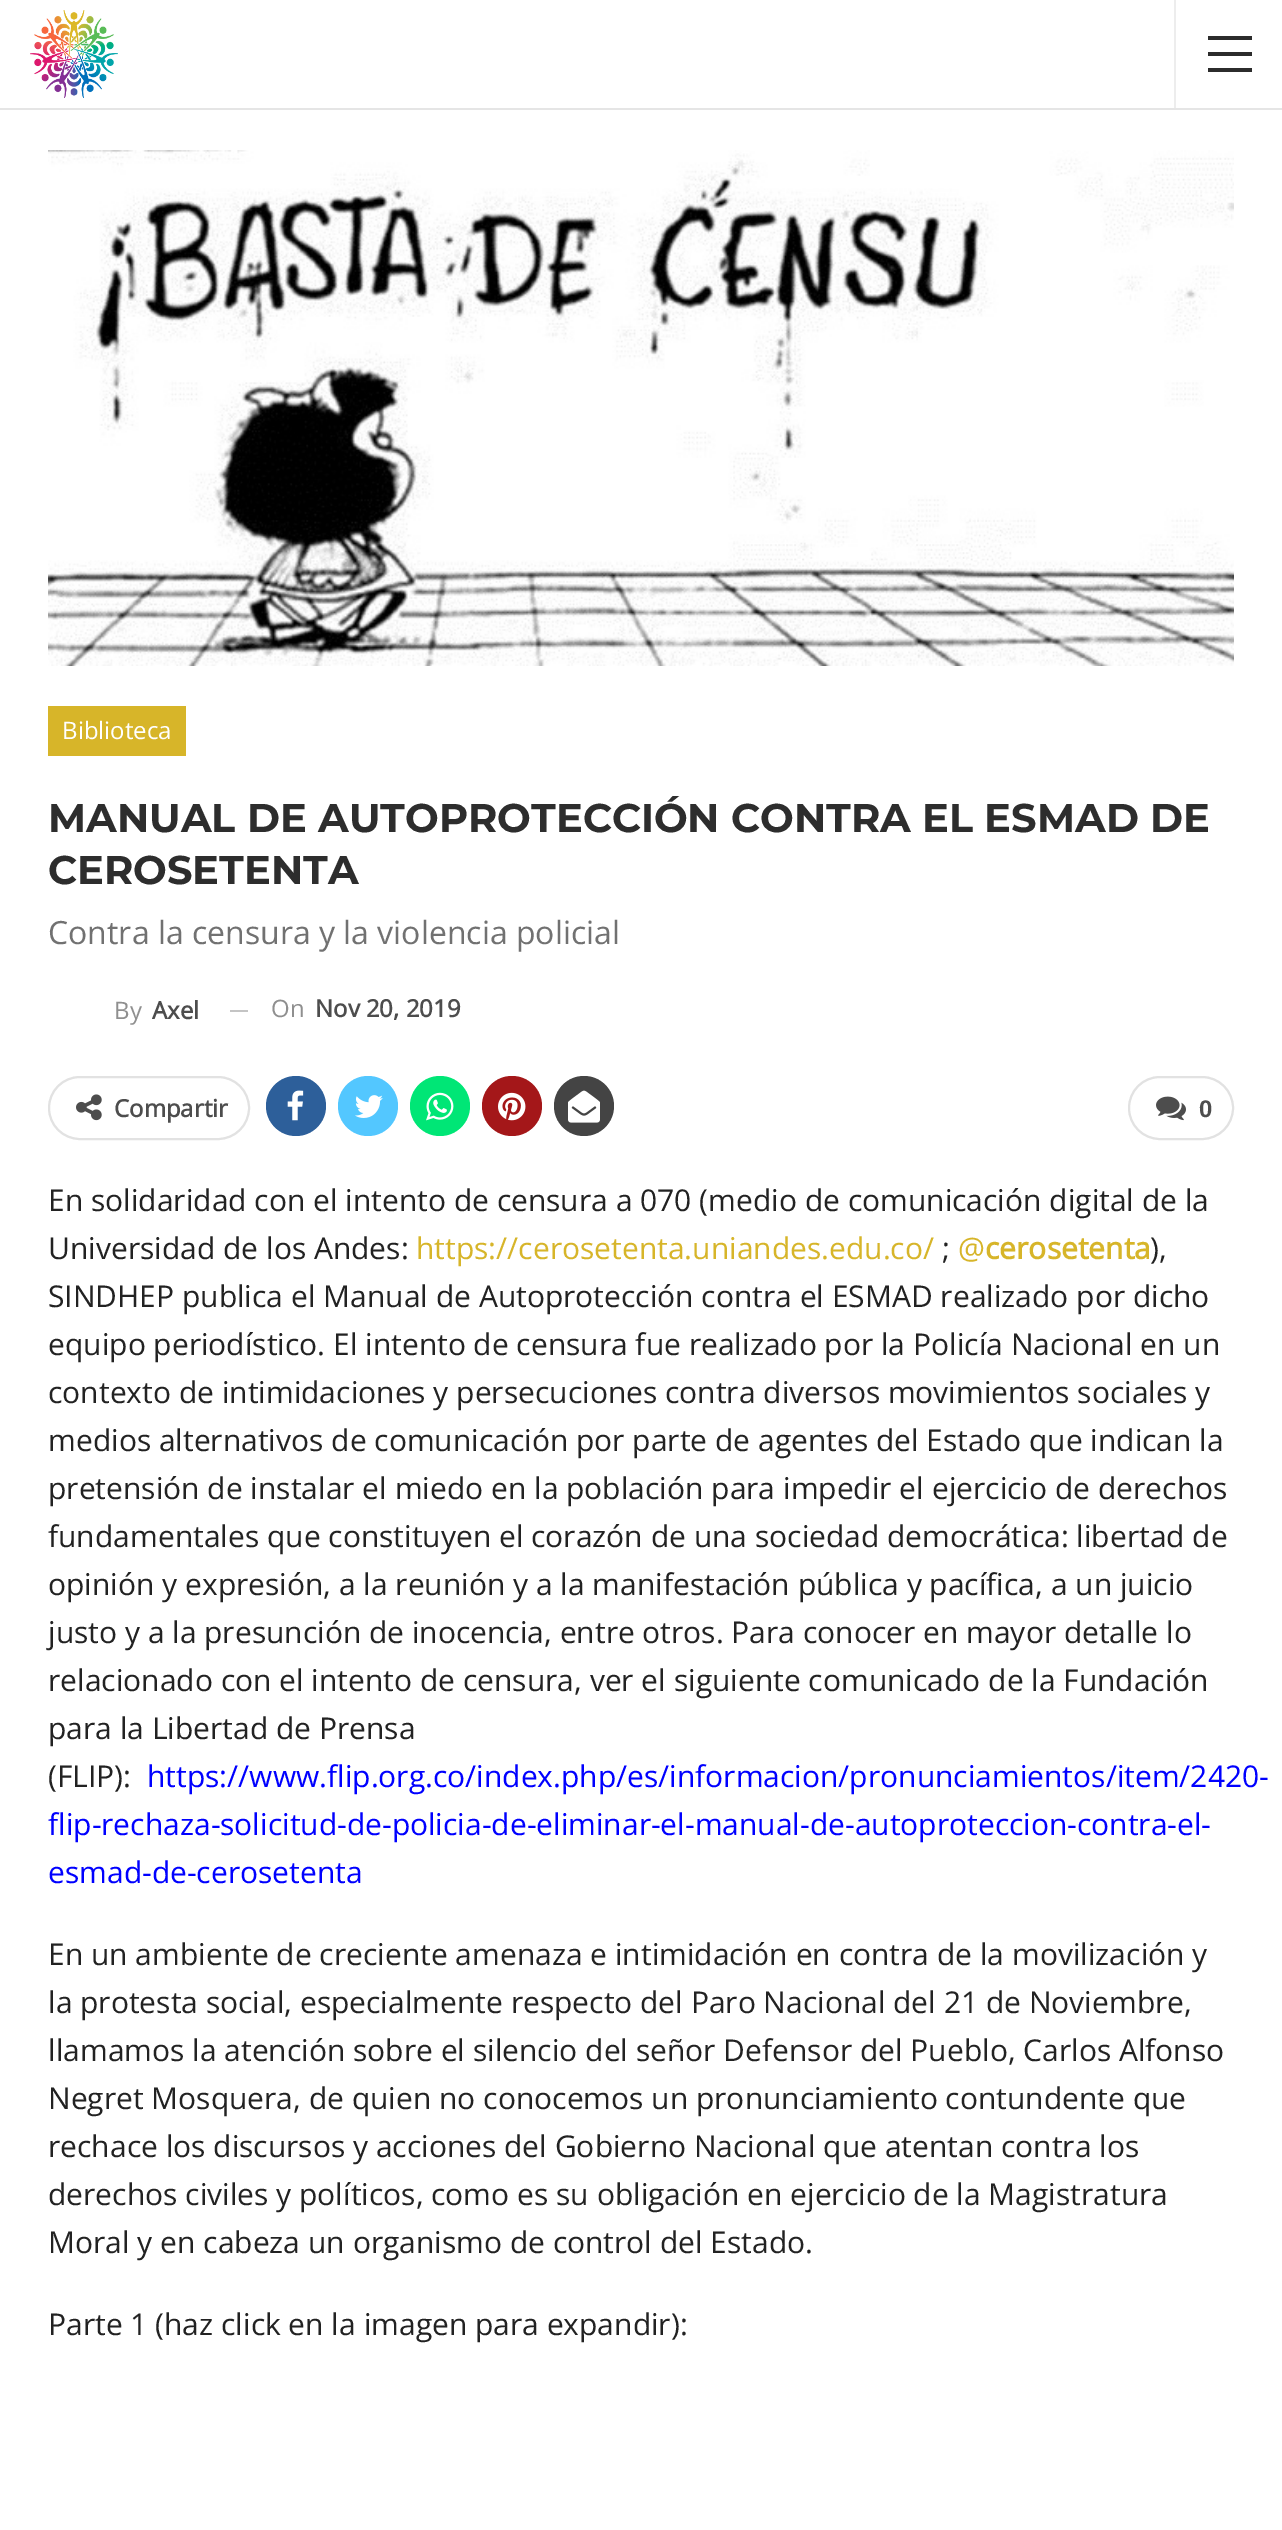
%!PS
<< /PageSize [1282 2530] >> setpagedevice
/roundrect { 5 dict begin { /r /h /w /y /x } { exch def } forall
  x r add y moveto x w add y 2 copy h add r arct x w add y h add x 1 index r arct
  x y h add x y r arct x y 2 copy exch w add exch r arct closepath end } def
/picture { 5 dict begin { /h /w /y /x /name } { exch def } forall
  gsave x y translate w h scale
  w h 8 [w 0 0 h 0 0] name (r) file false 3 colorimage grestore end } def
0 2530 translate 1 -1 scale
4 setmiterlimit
1 setgray
0 0 1282 2530 rectfill
0.898 setgray
0 108 1282 2 rectfill
(img1.rgb) 30 10 88 88 picture
0.929 setgray
1174 0 2 108 rectfill
0.173 setgray
1208 52 44 4 rectfill
1208 36 44 4 rectfill
1208 68 44 4 rectfill
(img2.rgb) 48 150 1186 516 picture
0.843 0.71 0.161 setrgbcolor
48 706 138 50 rectfill
/OpenSans-Regular [24 0 0 -24 0 0] selectfont
1 setgray
62 739 moveto (Biblioteca) show
/Montserrat-Bold [40 0 0 -40 0 0] selectfont
0.176 setgray
48 832 moveto (MANUAL DE AUTOPROTECCIÓN CONTRA EL ESMAD DE) show
48 884 moveto (CEROSETENTA) show
/OpenSans-Regular [32 0 0 -32 0 0] selectfont
0.443 setgray
48 944 moveto (Contra la censura y la violencia policial) show
/OpenSans-Regular [24 0 0 -24 0 0] selectfont
0.561 setgray
114 1019 moveto (By) show
/OpenSans-Bold [24 0 0 -24 0 0] selectfont
0.302 setgray
152 1019 moveto (Axel) show
0.769 setgray
230 1010 18 2 rectfill
/OpenSans-Regular [24 0 0 -24 0 0] selectfont
0.561 setgray
271 1017 moveto (On) show
/OpenSans-Bold [24 0 0 -24 0 0] selectfont
0.302 setgray
315 1017 moveto (Nov 20, 2019) show
0.886 setgray
2 setlinewidth
49 1077 200 62 31 roundrect stroke
(img3.rgb) 76 1094 26 27 picture
0.302 setgray
114 1117 moveto (Compartir) show
0.176 0.373 0.604 setrgbcolor
newpath 296 1106 30 0 360 arc closepath fill
(img4.rgb) 287 1090 17 31 picture
0.325 0.78 1 setrgbcolor
newpath 368 1106 30 0 360 arc closepath fill
(img5.rgb) 355 1095 28 23 picture
0 0.902 0.463 setrgbcolor
newpath 440 1106 30 0 360 arc closepath fill
(img6.rgb) 426 1092 28 29 picture
0.643 0.09 0.098 setrgbcolor
newpath 512 1106 30 0 360 arc closepath fill
(img7.rgb) 498 1092 28 29 picture
0.267 setgray
newpath 584 1106 30 0 360 arc closepath fill
(img8.rgb) 568 1090 32 33 picture
0.886 setgray
1129 1077 104 62 31 roundrect stroke
(img9.rgb) 1156 1096 30 25 picture
/LiberationSans-Bold [24 0 0 -24 0 0] selectfont
0.302 setgray
1199 1117 moveto (0) show
/OpenSans-Regular [30 0 0 -30 0 0] selectfont
0.133 setgray
48 1211 moveto (En solidaridad con el intento de censura a 070 \(medio de comunicación digital de la) show
48 1259 moveto (Universidad de los Andes:) show
0.843 0.71 0.161 setrgbcolor
416 1259 moveto (https://cerosetenta.uniandes.edu.co/) show
0.133 setgray
942 1259 moveto (;) show
0.843 0.71 0.161 setrgbcolor
958 1259 moveto (@) show
/OpenSans-Bold [30 0 0 -30 0 0] selectfont
985 1259 moveto (cerosetenta) show
/OpenSans-Regular [30 0 0 -30 0 0] selectfont
0.133 setgray
1150 1259 moveto (\),) show
48 1307 moveto (SINDHEP publica el Manual de Autoprotección contra el ESMAD realizado por dicho) show
48 1355 moveto (equipo periodístico. El intento de censura fue realizado por la Policía Nacional en un) show
48 1403 moveto (contexto de intimidaciones y persecuciones contra diversos movimientos sociales y) show
48 1451 moveto (medios alternativos de comunicación por parte de agentes del Estado que indican la) show
48 1499 moveto (pretensión de instalar el miedo en la población para impedir el ejercicio de derechos) show
48 1547 moveto (fundamentales que constituyen el corazón de una sociedad democrática: libertad de) show
48 1595 moveto (opinión y expresión, a la reunión y a la manifestación pública y pacífica, a un juicio) show
48 1643 moveto (justo y a la presunción de inocencia, entre otros. Para conocer en mayor detalle lo) show
48 1691 moveto (relacionado con el intento de censura, ver el siguiente comunicado de la Fundación) show
48 1739 moveto (para la Libertad de Prensa) show
48 1787 moveto (\(FLIP\):) show
0 0 1 setrgbcolor
147 1787 moveto (https://www.flip.org.co/index.php/es/informacion/pronunciamientos/item/2420-) show
48 1835 moveto (flip-rechaza-solicitud-de-policia-de-eliminar-el-manual-de-autoproteccion-contra-el-) show
48 1883 moveto (esmad-de-cerosetenta) show
0.133 setgray
48 1965 moveto (En un ambiente de creciente amenaza e intimidación en contra de la movilización y) show
48 2013 moveto (la protesta social, especialmente respecto del Paro Nacional del 21 de Noviembre,) show
48 2061 moveto (llamamos la atención sobre el silencio del señor Defensor del Pueblo, Carlos Alfonso) show
48 2109 moveto (Negret Mosquera, de quien no conocemos un pronunciamiento contundente que) show
48 2157 moveto (rechace los discursos y acciones del Gobierno Nacional que atentan contra los) show
48 2205 moveto (derechos civiles y políticos, como es su obligación en ejercicio de la Magistratura) show
48 2253 moveto (Moral y en cabeza un organismo de control del Estado.) show
48 2335 moveto (Parte 1 \(haz click en la imagen para expandir\):) show
showpage
